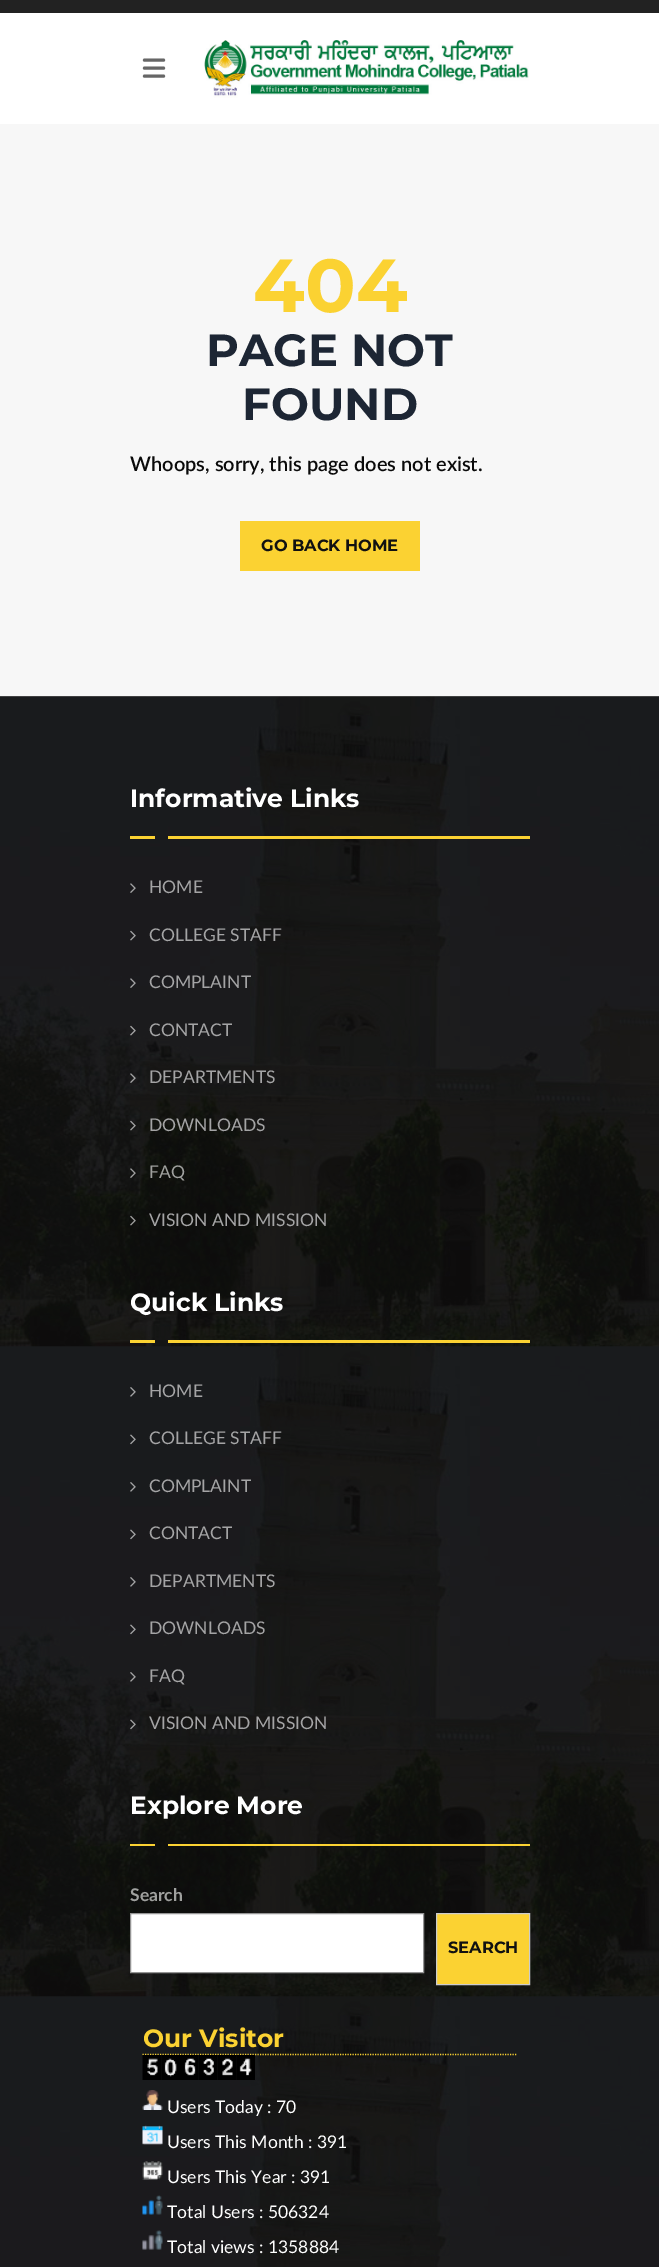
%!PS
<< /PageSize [659 2267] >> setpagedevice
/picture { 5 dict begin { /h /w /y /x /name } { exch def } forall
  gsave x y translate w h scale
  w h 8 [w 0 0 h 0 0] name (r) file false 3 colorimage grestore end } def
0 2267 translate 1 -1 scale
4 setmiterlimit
1 setgray
0 0 659 2267 rectfill
0.133 setgray
0 0 659 13 rectfill
0.4 setgray
3.1 setlinewidth
1 setlinecap
newpath 144.5 60 moveto 163.5 60 lineto 144.5 68 moveto 163.5 68 lineto 144.5 76 moveto 163.5 76 lineto stroke
(img1.rgb) 204 40 325 58 picture
0.969 setgray
0 124 659 572 rectfill
/Montserrat-Bold [75 0 0 -75 0 0] selectfont
0.984 0.824 0.196 setrgbcolor
253 312 moveto (404) show
/Montserrat-Bold [45 0 0 -45 0 0] selectfont
0.114 0.149 0.204 setrgbcolor
206 366 moveto (PAGE NOT) show
242 420 moveto (FOUND) show
/Lato-SemiBold [20 0 0 -20 0 0] selectfont
0.039 setgray
130 471 moveto (Whoops, sorry, this page does not exist.) show
0.984 0.824 0.196 setrgbcolor
240 521 180 50 rectfill
/Montserrat-Bold [16.25 0 0 -16.25 0 0] selectfont
0.067 setgray
261 551 moveto (GO BACK HOME) show
(img2.rgb) 0 696 659 1571 picture
/Montserrat-Bold [25 0 0 -25 0 0] selectfont
1 setgray
130 807 moveto (Informative Links) show
0.984 0.824 0.196 setrgbcolor
130 836 25 3 rectfill
168 836 362 3 rectfill
(img3.rgb) 130 883 6 10 picture
/Lato-Regular [17.5 0 0 -17.5 0 0] selectfont
0.643 0.643 0.647 setrgbcolor
149 893 moveto (HOME) show
(img4.rgb) 130 930 6 11 picture
149 941 moveto (COLLEGE STAFF) show
(img5.rgb) 130 978 6 10 picture
149 988 moveto (COMPLAINT) show
(img6.rgb) 130 1025 6 11 picture
149 1036 moveto (CONTACT) show
(img7.rgb) 130 1073 6 10 picture
149 1083 moveto (DEPARTMENTS) show
(img8.rgb) 130 1120 6 11 picture
149 1131 moveto (DOWNLOADS) show
(img9.rgb) 130 1168 6 10 picture
0.624 0.627 0.62 setrgbcolor
149 1178 moveto (FAQ) show
(img10.rgb) 130 1215 6 11 picture
0.643 0.643 0.647 setrgbcolor
149 1226 moveto (VISION AND MISSION) show
/Montserrat-Bold [25 0 0 -25 0 0] selectfont
1 setgray
130 1311 moveto (Quick Links) show
0.984 0.824 0.196 setrgbcolor
130 1340 25 3 rectfill
168 1340 362 3 rectfill
(img11.rgb) 130 1387 6 10 picture
/Lato-Regular [17.5 0 0 -17.5 0 0] selectfont
0.643 0.643 0.647 setrgbcolor
149 1397 moveto (HOME) show
(img12.rgb) 130 1434 6 11 picture
149 1444 moveto (COLLEGE STAFF) show
(img11.rgb) 130 1482 6 10 picture
149 1492 moveto (COMPLAINT) show
(img13.rgb) 130 1529 6 11 picture
149 1539 moveto (CONTACT) show
(img14.rgb) 130 1577 6 10 picture
149 1587 moveto (DEPARTMENTS) show
(img15.rgb) 130 1624 6 11 picture
149 1634 moveto (DOWNLOADS) show
(img16.rgb) 130 1672 6 10 picture
149 1682 moveto (FAQ) show
(img17.rgb) 130 1719 6 11 picture
149 1729 moveto (VISION AND MISSION) show
/Montserrat-Bold [25 0 0 -25 0 0] selectfont
1 setgray
130 1814 moveto (Explore More) show
0.984 0.824 0.196 setrgbcolor
130 1844 25 2 rectfill
168 1844 362 2 rectfill
/Lato-Bold [17.5 0 0 -17.5 0 0] selectfont
0.624 0.627 0.62 setrgbcolor
130 1901 moveto (Search) show
1 setgray
newpath 130.5 1913.5 moveto 423.5 1913.5 lineto 423.5 1972.5 lineto 130.5 1972.5 lineto closepath gsave fill grestore
0.58 setgray
1 setlinewidth
0 setlinecap
stroke
0.984 0.824 0.196 setrgbcolor
newpath 436.5 1913.5 moveto 529.5 1913.5 lineto 529.5 1984.5 lineto 436.5 1984.5 lineto closepath gsave fill grestore
0.8 setgray
stroke
/Montserrat-Bold [16.25 0 0 -16.25 0 0] selectfont
0.067 setgray
448 1953 moveto (SEARCH) show
0.984 0.824 0.196 setrgbcolor
1.2 setlinewidth
[1.25 1.25] 0 setdash
newpath 142.5 2054.5 moveto 517.5 2054.5 lineto stroke
/Montserrat-Bold [25 0 0 -25 0 0] selectfont
143 2047 moveto (Our Visitor) show
(img18.rgb) 142 2055 20 25 picture
(img19.rgb) 161 2055 19 25 picture
(img20.rgb) 180 2055 19 25 picture
(img21.rgb) 199 2055 19 25 picture
(img22.rgb) 217 2055 20 25 picture
(img23.rgb) 236 2055 19 25 picture
(img24.rgb) 142 2090 21 20 picture
/Lato-Regular [17.5 0 0 -17.5 0 0] selectfont
1 setgray
167 2113 moveto (Users Today : 70) show
(img25.rgb) 142 2125 21 20 picture
167 2148 moveto (Users This Month : 391) show
(img26.rgb) 142 2161 21 19 picture
167 2183 moveto (Users This Year : 391) show
(img27.rgb) 142 2195 21 20 picture
167 2218 moveto (Total Users : 506324) show
(img28.rgb) 142 2230 21 20 picture
167 2253 moveto (Total views : 1358884) show
showpage
